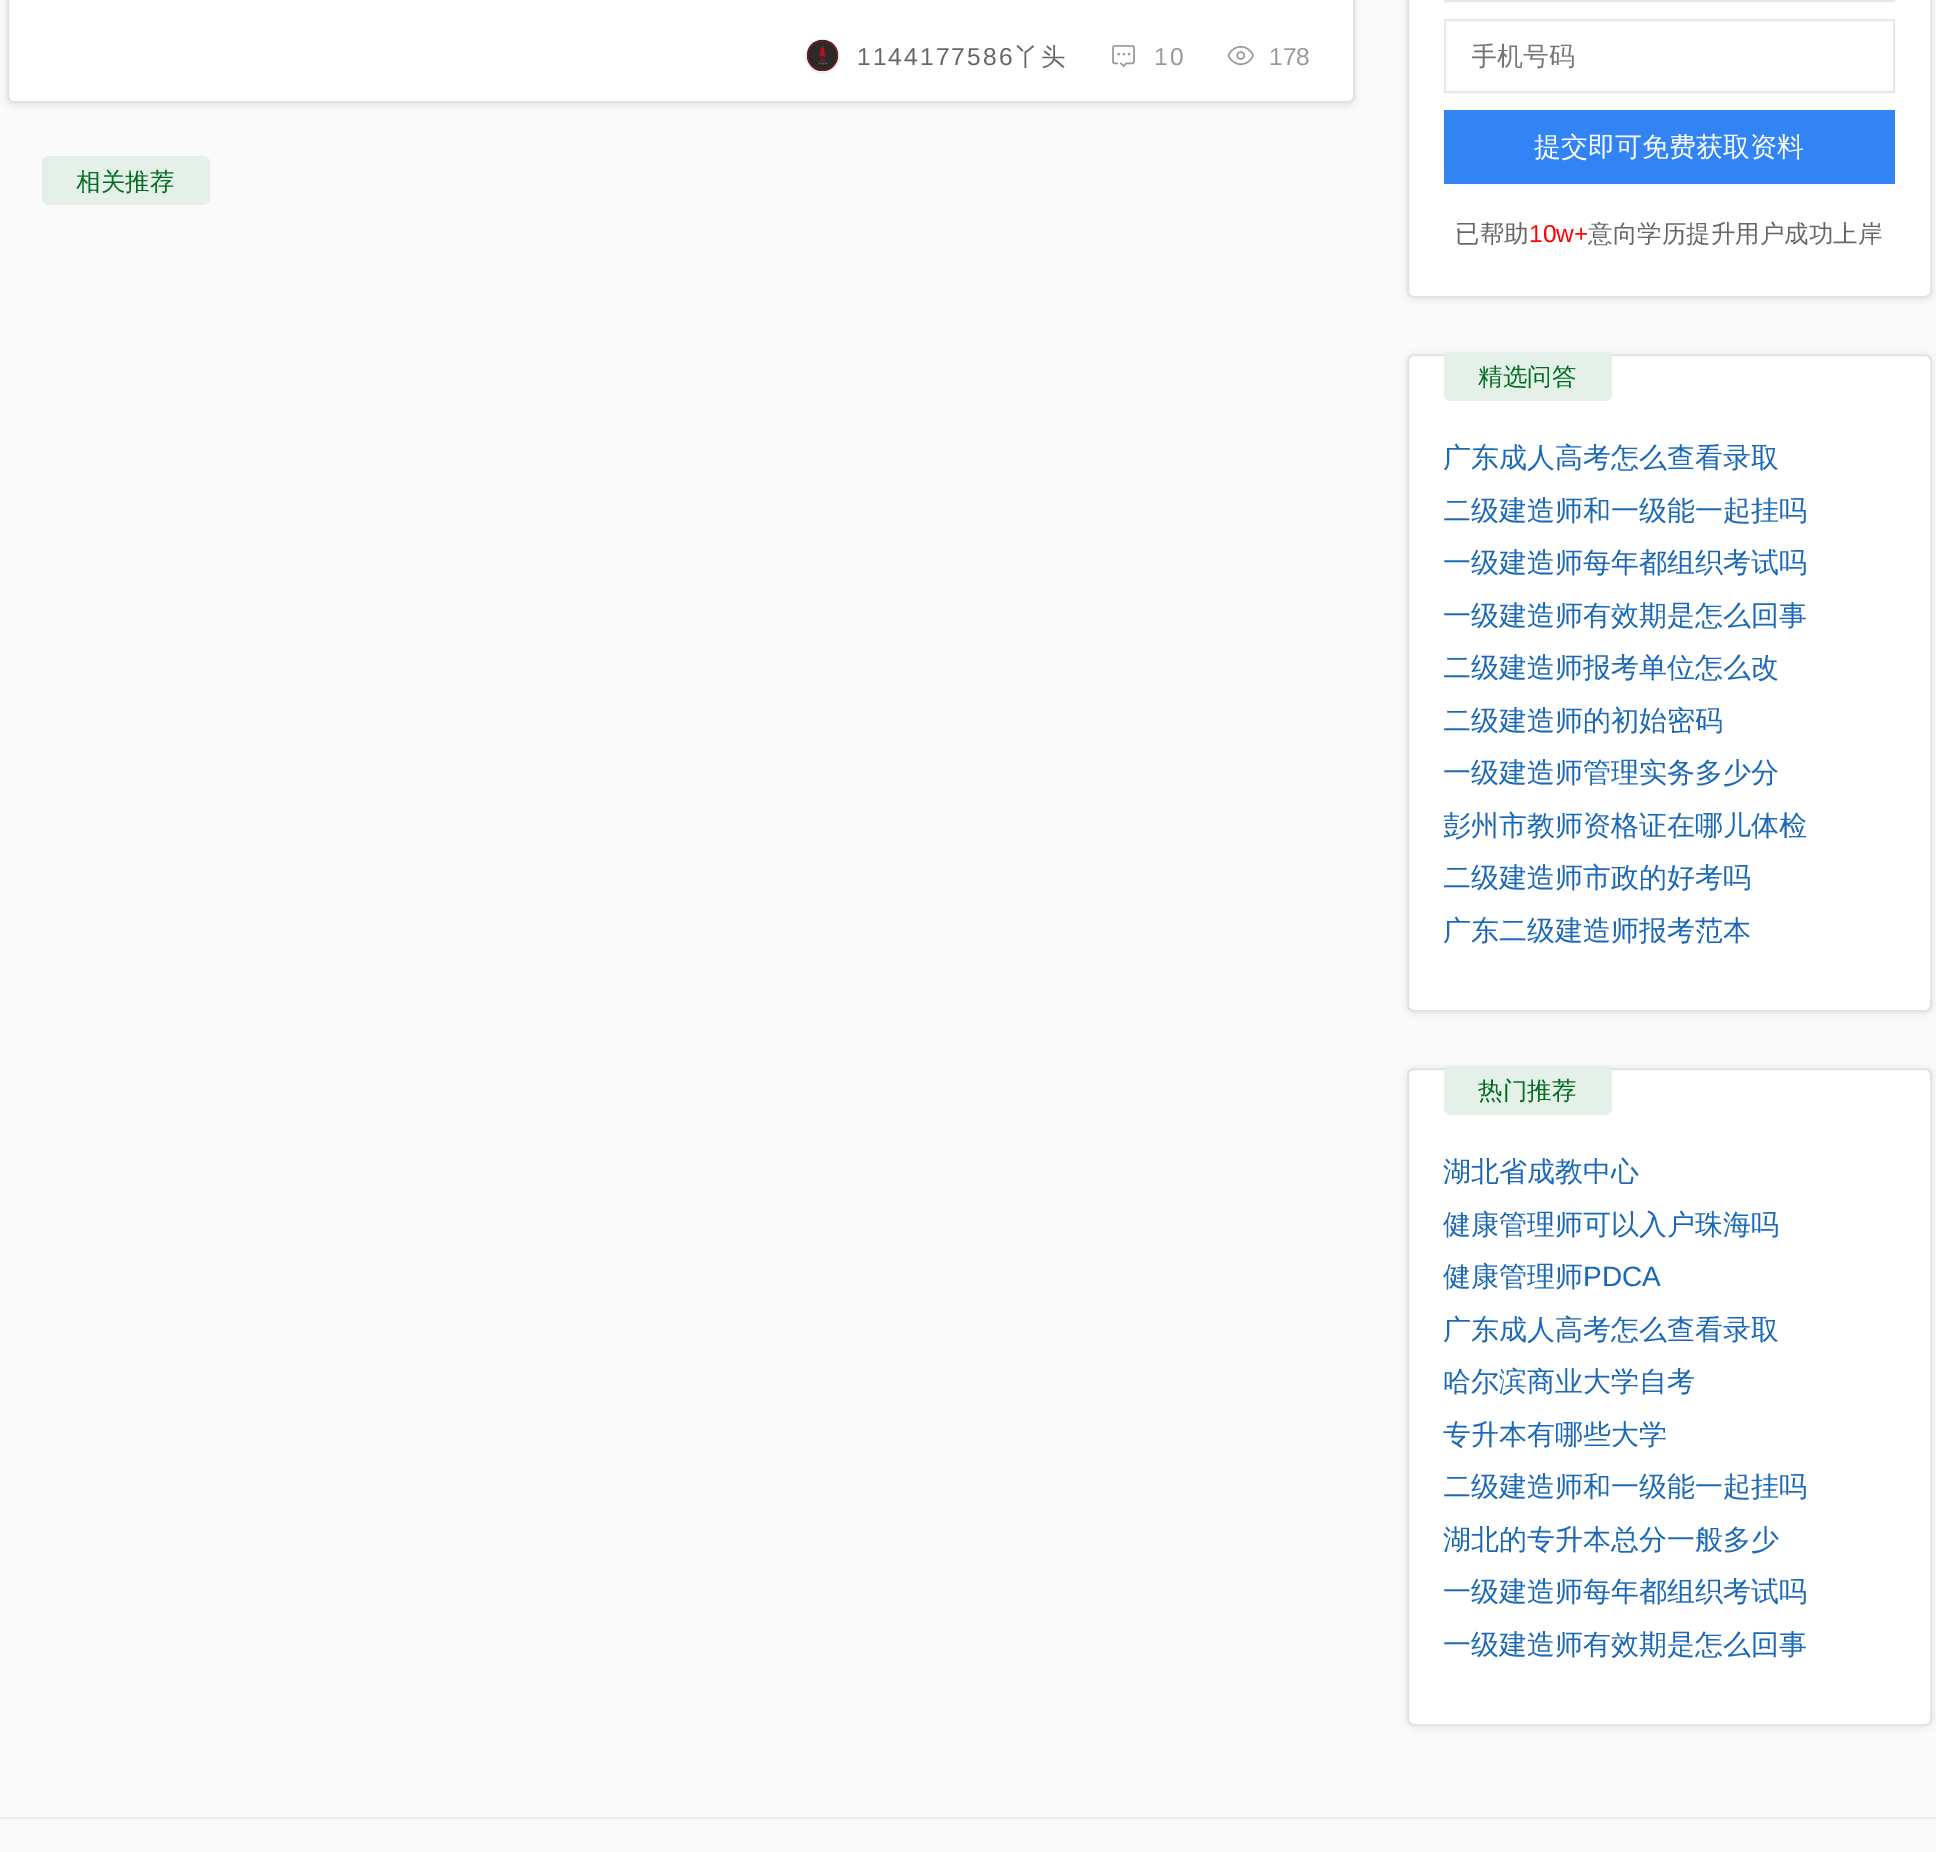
%!PS
<< /PageSize [1936 1852] /PageUsesTransparency true >> setpagedevice
/alpha { dup .setfillconstantalpha .setstrokeconstantalpha } def
/roundrect { 5 dict begin { /r /h /w /y /x } { exch def } forall
  x r add y moveto x w add y 2 copy h add r arct x w add y h add x 1 index r arct
  x y h add x y r arct x y 2 copy exch w add exch r arct closepath end } def
/shadow { 12 dict begin { /a /b /q /h /w /y /x } { exch def } forall gsave /was 0 def
  9 -2 -9 { dup b mul 4 div /e exch def 1 sub .425 mul 2.718 exch exp 1 add a .99 .min exch div /now exch def
    1 1 now sub 1 was sub div sub alpha /was now def
    w h .min e 2 mul add 0 gt { x e sub y e sub w e 2 mul add h e 2 mul add
      q e add b .6 mul add w h .min 2 div e add .min 0 .max roundrect fill } if } for grestore end } def
/picture { 5 dict begin { /h /w /y /x /name } { exch def } forall
  gsave x y translate w h scale
  w h 8 [w 0 0 h 0 0] name (r) file false 3 colorimage grestore end } def
0 .pushpdf14devicefilter
0 1852 translate 1 -1 scale
4 setmiterlimit
0.98 setgray
0 0 1936 1852 rectfill
0.902 0.886 0.886 setrgbcolor
7 -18 1348 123 7 3.5 1 shadow
1 setgray
8 -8 1346 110 6 roundrect gsave fill grestore
0.902 0.886 0.886 setrgbcolor
2 setlinewidth
stroke
0.933 setgray
newpath 822.5 56.5 16.5 0 360 arc closepath stroke
(img1.rgb) 806 39 33 33 picture
/LiberationSans-Regular [24.5 0 0 -24.5 0 0] selectfont
0.4 setgray
857 65 moveto 2.1 0 (1144177586) ashow
/WenQuanYiZenHei-Medium [24.5 0 0 -24.5 0 0] selectfont
1014 65 moveto 2.1 0 (丫头) ashow
(img2.rgb) 1112 45 23 22 picture
/LiberationSans-Regular [24.5 0 0 -24.5 0 0] selectfont
0.6 setgray
1154 65 moveto 2.1 0 (10) ashow
(img3.rgb) 1227 45 27 21 picture
1269 65 moveto (178) show
0.898 0.941 0.91 setrgbcolor
42 156 168 49 7 roundrect fill
/WenQuanYiZenHei-Medium [24.5 0 0 -24.5 0 0] selectfont
0 0.427 0.129 setrgbcolor
76 190 moveto (相关推荐) show
0.902 0.886 0.886 setrgbcolor
1407 -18 525 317 7 3.5 1 shadow
1 setgray
1408 -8 523 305 6 roundrect gsave fill grestore
0.902 0.886 0.886 setrgbcolor
stroke
0.914 setgray
1445 -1 449 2 rectstroke
1445 20 449 72 rectstroke
gsave
1472 40 395 34 rectclip
/WenQuanYiZenHei-Medium [26 0 0 -26 0 0] selectfont
0.459 setgray
1471 65 moveto (手机号码) show
grestore
0.196 0.518 0.957 setrgbcolor
1444 110 451 74 rectfill
/WenQuanYiZenHei-Medium [27 0 0 -27 0 0] selectfont
1 setgray
1534 156 moveto (提交即可免费获取资料) show
/WenQuanYiZenHei-Medium [24.5 0 0 -24.5 0 0] selectfont
0.4 setgray
1455 242 moveto (已帮助) show
/LiberationSans-Regular [24.5 0 0 -24.5 0 0] selectfont
1 0 0 setrgbcolor
1529 242 moveto (10w+) show
/WenQuanYiZenHei-Medium [24.5 0 0 -24.5 0 0] selectfont
0.4 setgray
1588 242 moveto (意向学历提升用户成功上岸) show
0.902 0.886 0.886 setrgbcolor
1407 355 525 658 7 3.5 1 shadow
1 setgray
1408 355 523 656 6 roundrect gsave fill grestore
0.902 0.886 0.886 setrgbcolor
stroke
0.898 0.941 0.91 setrgbcolor
1444 352 168 49 7 roundrect fill
0 0.427 0.129 setrgbcolor
1478 385 moveto (精选问答) show
/WenQuanYiZenHei-Medium [28 0 0 -28 0 0] selectfont
0.106 0.412 0.714 setrgbcolor
1443 467 moveto (广东成人高考怎么查看录取) show
gsave
1444 485 451 52 rectclip
1443 520 moveto (二级建造师和一级能一起挂吗) show
grestore
1443 572 moveto (一级建造师每年都组织考试吗) show
1443 625 moveto (一级建造师有效期是怎么回事) show
gsave
1444 642 451 53 rectclip
1443 677 moveto (二级建造师报考单位怎么改) show
grestore
gsave
1444 695 451 52 rectclip
1443 730 moveto (二级建造师的初始密码) show
grestore
1443 782 moveto (一级建造师管理实务多少分) show
gsave
1444 800 451 52 rectclip
1443 835 moveto (彭州市教师资格证在哪儿体检) show
grestore
gsave
1444 852 451 53 rectclip
1443 887 moveto (二级建造师市政的好考吗) show
grestore
1443 940 moveto (广东二级建造师报考范本) show
0.902 0.886 0.886 setrgbcolor
1407 1069 525 658 7 3.5 1 shadow
1 setgray
1408 1069 523 656 6 roundrect gsave fill grestore
0.902 0.886 0.886 setrgbcolor
stroke
0.898 0.941 0.91 setrgbcolor
1444 1066 168 49 7 roundrect fill
/WenQuanYiZenHei-Medium [24.5 0 0 -24.5 0 0] selectfont
0 0.427 0.129 setrgbcolor
1478 1099 moveto (热门推荐) show
/WenQuanYiZenHei-Medium [28 0 0 -28 0 0] selectfont
0.106 0.412 0.714 setrgbcolor
1443 1181 moveto (湖北省成教中心) show
1443 1234 moveto (健康管理师可以入户珠海吗) show
1443 1286 moveto (健康管理师) show
/LiberationSans-Regular [28 0 0 -28 0 0] selectfont
1583 1286 moveto (PDCA) show
/WenQuanYiZenHei-Medium [28 0 0 -28 0 0] selectfont
1443 1339 moveto (广东成人高考怎么查看录取) show
1443 1391 moveto (哈尔滨商业大学自考) show
1443 1444 moveto (专升本有哪些大学) show
gsave
1444 1461 451 53 rectclip
1443 1496 moveto (二级建造师和一级能一起挂吗) show
grestore
1443 1549 moveto (湖北的专升本总分一般多少) show
1443 1601 moveto (一级建造师每年都组织考试吗) show
1443 1654 moveto (一级建造师有效期是怎么回事) show
0.933 setgray
0 1817 1936 2 rectfill
.poppdf14devicefilter showpage
